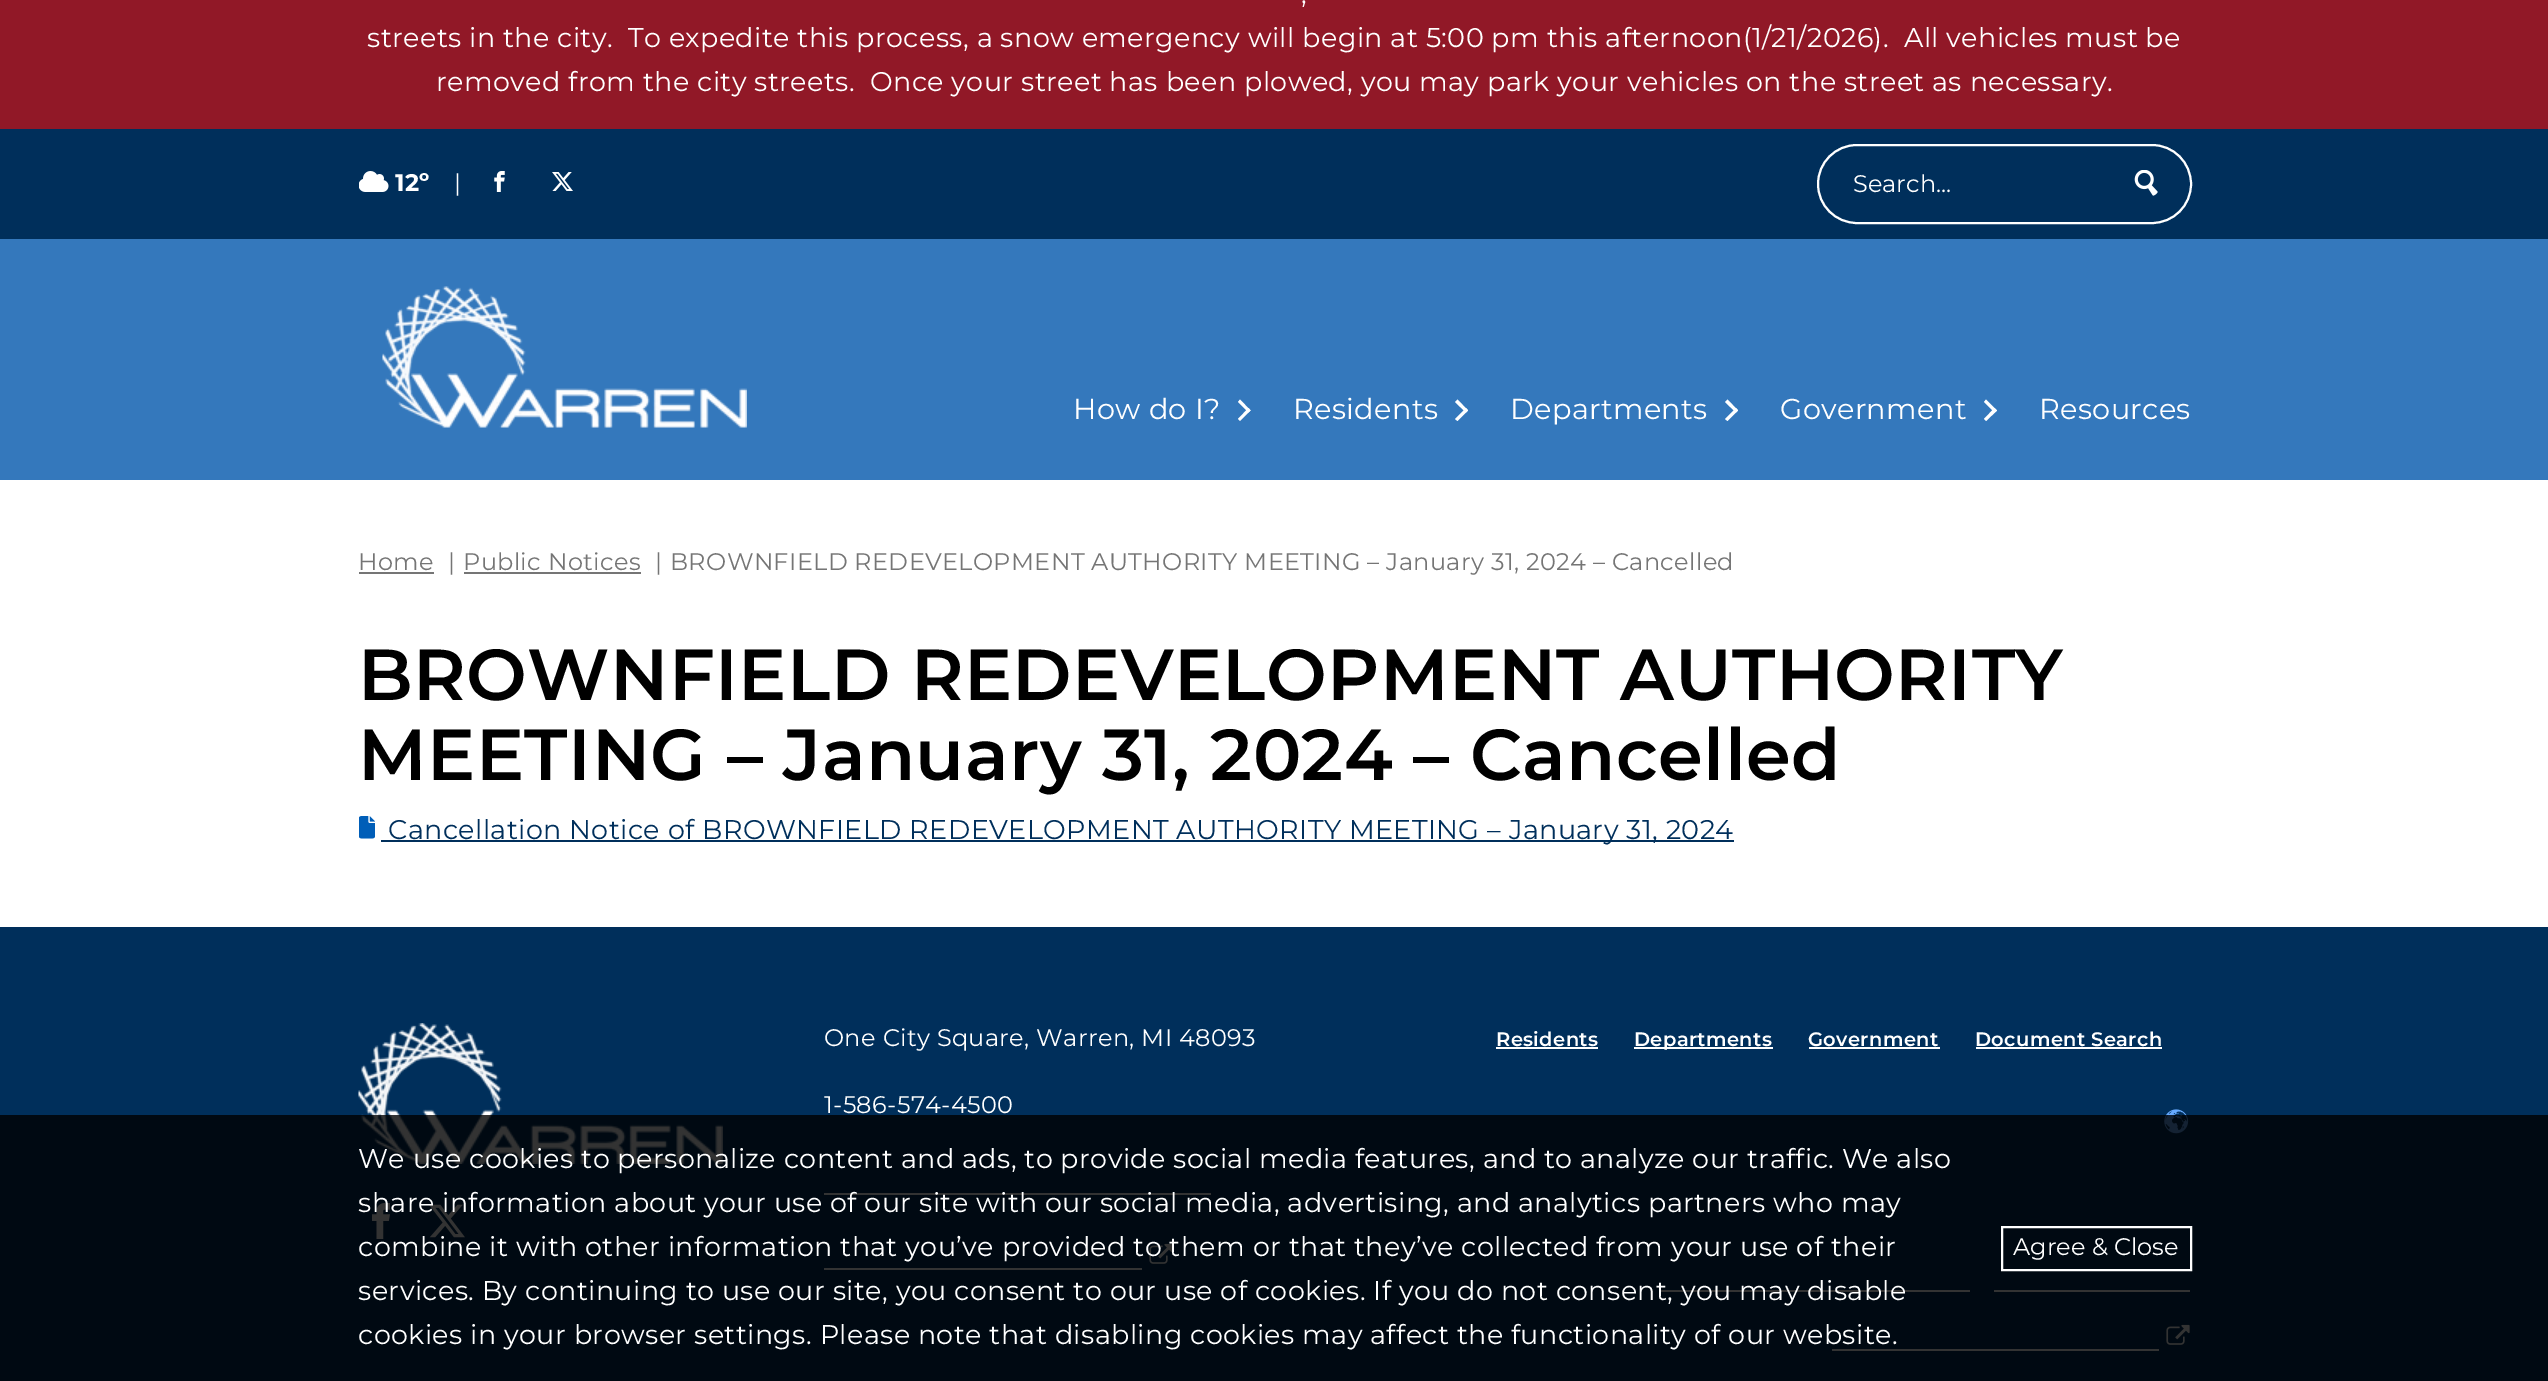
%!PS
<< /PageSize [2548 1381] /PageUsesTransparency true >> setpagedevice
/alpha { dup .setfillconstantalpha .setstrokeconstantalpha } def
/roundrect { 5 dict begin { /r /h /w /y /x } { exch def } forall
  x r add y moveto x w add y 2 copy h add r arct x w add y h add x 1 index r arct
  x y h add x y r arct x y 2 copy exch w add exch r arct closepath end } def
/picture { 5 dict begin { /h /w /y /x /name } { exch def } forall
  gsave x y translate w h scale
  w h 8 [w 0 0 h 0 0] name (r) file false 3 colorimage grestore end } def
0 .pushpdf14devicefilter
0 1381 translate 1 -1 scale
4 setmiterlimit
1 setgray
0 0 2548 1381 rectfill
0.204 0.471 0.737 setrgbcolor
0 239 2548 241 rectfill
0.569 0.094 0.153 setrgbcolor
0 0 2548 129 rectfill
/Montserrat-Regular [27 0 0 -27 0 0] selectfont
1 setgray
1301 3 moveto 0.41 0 (,) ashow
367 47 moveto 0.41 0 (streets in the city.  To expedite this process, a snow emergency will begin at 5:00 pm this afternoon\(1/21/2026\).  All vehicles must be) ashow
436 91 moveto 0.41 0 (removed from the city streets.  Once your street has been plowed, you may park your vehicles on the street as necessary.) ashow
0 0.184 0.357 setrgbcolor
0 129 2548 110 rectfill
(img1.rgb) 359 171 30 21 picture
/Montserrat-Bold [24 0 0 -24 0 0] selectfont
1 setgray
395 191 moveto 0.35 0 (12º) ashow
/Montserrat-Regular [24 0 0 -24 0 0] selectfont
454 191 moveto 0.35 0 (|) ashow
(img2.rgb) 494 171 11 21 picture
(img3.rgb) 552 172 21 19 picture
2 setlinewidth
1818 145 373 78 39 roundrect stroke
1853 192 moveto (Search...) show
(img4.rgb) 2134 170 24 26 picture
(img5.rgb) 382 286 365 142 picture
/Montserrat-Regular [28.75 0 0 -28.75 0 0] selectfont
1073 419 moveto 0.35 0 (How do I?) ashow
newpath 1238 402 moveto 1240 399.5 lineto 1250.5 410.5 lineto 1248.5 412.5 lineto closepath fill
newpath 1238 419 moveto 1248.5 408 lineto 1250.5 410.5 lineto 1240 421 lineto closepath fill
1293 419 moveto 0.35 0 (Residents) ashow
newpath 1455 402 moveto 1457.5 399.5 lineto 1468 410.5 lineto 1466 412.5 lineto closepath fill
newpath 1455 419 moveto 1466 408 lineto 1468 410.5 lineto 1457.5 421 lineto closepath fill
1510 419 moveto 0.35 0 (Departments) ashow
newpath 1725 402 moveto 1727.5 399.5 lineto 1738 410.5 lineto 1736 412.5 lineto closepath fill
newpath 1725 419 moveto 1736 408 lineto 1738 410.5 lineto 1727.5 421 lineto closepath fill
1780 419 moveto 0.35 0 (Government) ashow
newpath 1984 402 moveto 1986 399.5 lineto 1997 410.5 lineto 1994.5 412.5 lineto closepath fill
newpath 1984 419 moveto 1994.5 408 lineto 1997 410.5 lineto 1986 421 lineto closepath fill
2039 419 moveto 0.35 0 (Resources) ashow
/Montserrat-Regular [24 0 0 -24 0 0] selectfont
0.459 setgray
358 570 moveto 0.35 0 (Home) ashow
359 572 75 2 rectfill
448 570 moveto 0.35 0 (|) ashow
463 570 moveto 0.35 0 (Public Notices) ashow
464 572 177 2 rectfill
655 570 moveto 0.35 0 (|) ashow
670 570 moveto 0.35 0 (BROWNFIELD REDEVELOPMENT AUTHORITY MEETING – January 31, 2024 – Cancelled) ashow
/Montserrat-SemiBold [72 0 0 -72 0 0] selectfont
0 setgray
358 700 moveto 0.41 0 (BROWNFIELD REDEVELOPMENT AUTHORITY) ashow
358 780 moveto 0.41 0 (MEETING – January 31, 2024 – Cancelled) ashow
(img6.rgb) 359 816 16 23 picture
0 0.184 0.357 setrgbcolor
381 840 1353 2 rectfill
/Montserrat-Regular [27 0 0 -27 0 0] selectfont
388 839 moveto 0.41 0 (Cancellation Notice of BROWNFIELD REDEVELOPMENT AUTHORITY MEETING – January 31, 2024) ashow
0 927 2548 454 rectfill
(img7.rgb) 358 1023 365 141 picture
(img8.rgb) 372 1203 18 36 picture
(img9.rgb) 429 1204 36 34 picture
/Montserrat-Regular [24 0 0 -24 0 0] selectfont
1 setgray
824 1046 moveto 0.35 0 (One City Square, Warren, MI 48093) ashow
824 1113 moveto 0.35 0 (1-586-574-4500) ashow
824 1193 387 2 rectfill
(img10.rgb) 1149 1243 24 21 picture
824 1268 318 2 rectfill
/Montserrat-SemiBold [19.5 0 0 -19.5 0 0] selectfont
1496 1046 moveto 0.35 0 (Residents) ashow
1496 1047 102 2 rectfill
1634 1047 139 2 rectfill
1634 1046 moveto 0.35 0 (Departments) ashow
1808 1046 moveto 0.35 0 (Government) ashow
1809 1047 131 2 rectfill
1975 1046 moveto 0.35 0 (Document Search) ashow
1976 1047 186 2 rectfill
(img11.rgb) 2164 1109 25 25 picture
1661 1290 309 2 rectfill
1994 1290 196 2 rectfill
(img10.rgb) 2166 1324 24 21 picture
1832 1349 327 2 rectfill
0.8 alpha
0 setgray
0 1115 2548 266 rectfill
/Montserrat-Regular [27 0 0 -27 0 0] selectfont
1 alpha
1 setgray
358 1168 moveto 0.41 0 (We use cookies to personalize content and ads, to provide social media features, and to analyze our traffic. We also) ashow
358 1212 moveto 0.41 0 (share information about your use of our site with our social media, advertising, and analytics partners who may) ashow
358 1256 moveto 0.41 0 (combine it with other information that you’ve provided to them or that they’ve collected from your use of their) ashow
358 1300 moveto 0.41 0 (services. By continuing to use our site, you consent to our use of cookies. If you do not consent, you may disable) ashow
358 1344 moveto 0.41 0 (cookies in your browser settings. Please note that disabling cookies may affect the functionality of our website.) ashow
2002 1227 189 43 rectstroke
/Montserrat-Regular [24 0 0 -24 0 0] selectfont
2013 1255 moveto (Agree & Close) show
.poppdf14devicefilter showpage
